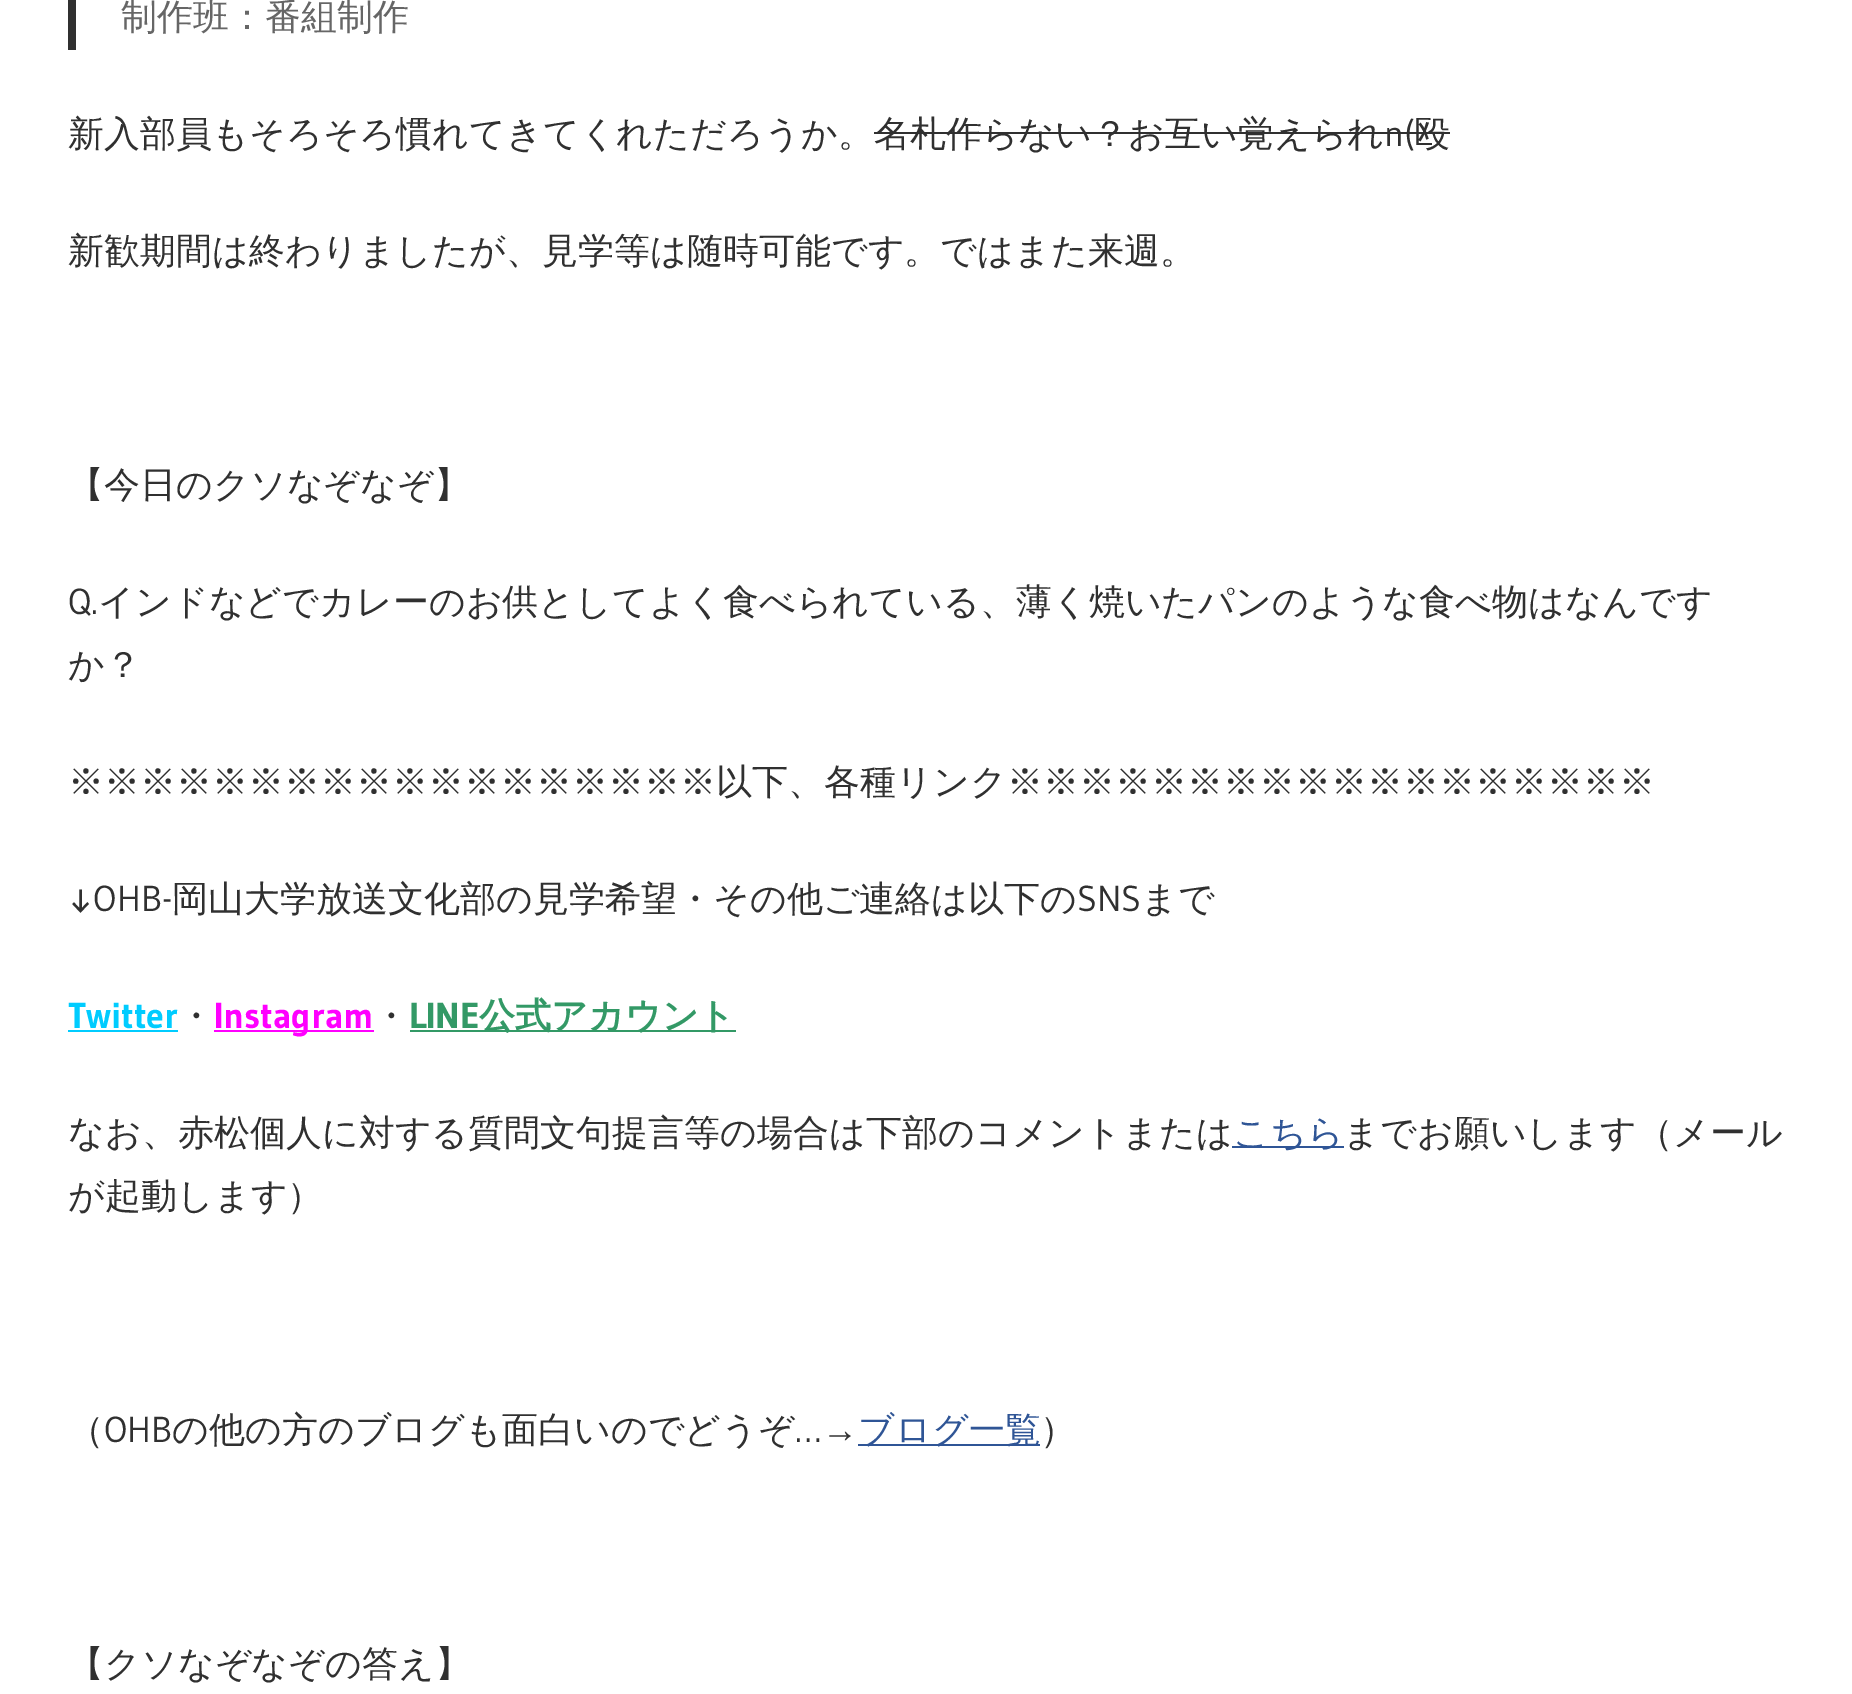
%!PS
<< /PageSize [1852 1694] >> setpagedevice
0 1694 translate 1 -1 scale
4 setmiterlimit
1 setgray
0 0 1852 1694 rectfill
0.188 setgray
68 0 8 50 rectfill
/WenQuanYiZenHei-Medium [36 0 0 -36 0 0] selectfont
0.4 setgray
121 29 moveto (制作班：番組制作) show
0.188 setgray
68 146 moveto (新入部員もそろそろ慣れてきてくれただろうか。名札作らない？お互い覚えられ) show
/Gudea-Regular [36 0 0 -36 0 0] selectfont
1384 146 moveto (n\() show
/WenQuanYiZenHei-Medium [36 0 0 -36 0 0] selectfont
1414 146 moveto (殴) show
874 132 576 2 rectfill
68 263 moveto (新歓期間は終わりましたが、見学等は随時可能です。ではまた来週。) show
68 497 moveto (【今日のクソなぞなぞ】) show
/Gudea-Regular [36 0 0 -36 0 0] selectfont
68 614 moveto (Q.) show
/WenQuanYiZenHei-Medium [36 0 0 -36 0 0] selectfont
98 614 moveto (インドなどでカレーのお供としてよく食べられている、薄く焼いたパンのような食べ物はなんです) show
68 677 moveto (か？) show
68 794 moveto (※※※※※※※※※※※※※※※※※※以下、各種リンク※※※※※※※※※※※※※※※※※※) show
/Gudea-Regular [36 0 0 -36 0 0] selectfont
68 911 moveto (↓OHB-) show
/WenQuanYiZenHei-Medium [36 0 0 -36 0 0] selectfont
172 911 moveto (岡山大学放送文化部の見学希望・その他ご連絡は以下の) show
/Gudea-Regular [36 0 0 -36 0 0] selectfont
1077 911 moveto (SNS) show
/WenQuanYiZenHei-Medium [36 0 0 -36 0 0] selectfont
1141 911 moveto (まで) show
/Gudea-Bold [36 0 0 -36 0 0] selectfont
0 0.8 1 setrgbcolor
68 1028 moveto (Twitter) show
68 1030 110 2 rectfill
/WenQuanYiZenHei-Medium [36 0 0 -36 0 0] selectfont
0.188 setgray
178 1028 moveto (・) show
1 0 1 setrgbcolor
214 1030 160 2 rectfill
/Gudea-Bold [36 0 0 -36 0 0] selectfont
214 1028 moveto (Instagram) show
/WenQuanYiZenHei-Medium [36 0 0 -36 0 0] selectfont
0.188 setgray
373 1028 moveto (・) show
/Gudea-Bold [36 0 0 -36 0 0] selectfont
0.2 0.6 0.4 setrgbcolor
409 1028 moveto (LINE) show
410 1030 326 2 rectfill
/WenQuanYiZenHei-Bold [36 0 0 -36 0 0] selectfont
479 1028 moveto (公式アカウント) show
/WenQuanYiZenHei-Medium [36 0 0 -36 0 0] selectfont
0.188 setgray
68 1145 moveto (なお、赤松個人に対する質問文句提言等の場合は下部のコメントまたは) show
0.184 0.333 0.588 setrgbcolor
1232 1146 112 2 rectfill
1233 1145 moveto (こちら) show
0.188 setgray
1343 1145 moveto (までお願いします（メール) show
68 1208 moveto (が起動します）) show
68 1442 moveto (（) show
/Gudea-Regular [36 0 0 -36 0 0] selectfont
104 1442 moveto (OHB) show
/WenQuanYiZenHei-Medium [36 0 0 -36 0 0] selectfont
172 1442 moveto (の他の方のブログも面白いのでどうぞ) show
/Gudea-Regular [36 0 0 -36 0 0] selectfont
795 1442 moveto (…) show
/LiberationSans-Regular [36 0 0 -36 0 0] selectfont
822 1442 moveto (→) show
0.184 0.333 0.588 setrgbcolor
858 1444 182 2 rectfill
/WenQuanYiZenHei-Medium [36 0 0 -36 0 0] selectfont
858 1442 moveto (ブログ一覧) show
0.188 setgray
1040 1442 moveto (）) show
68 1676 moveto (【クソなぞなぞの答え】) show
showpage
